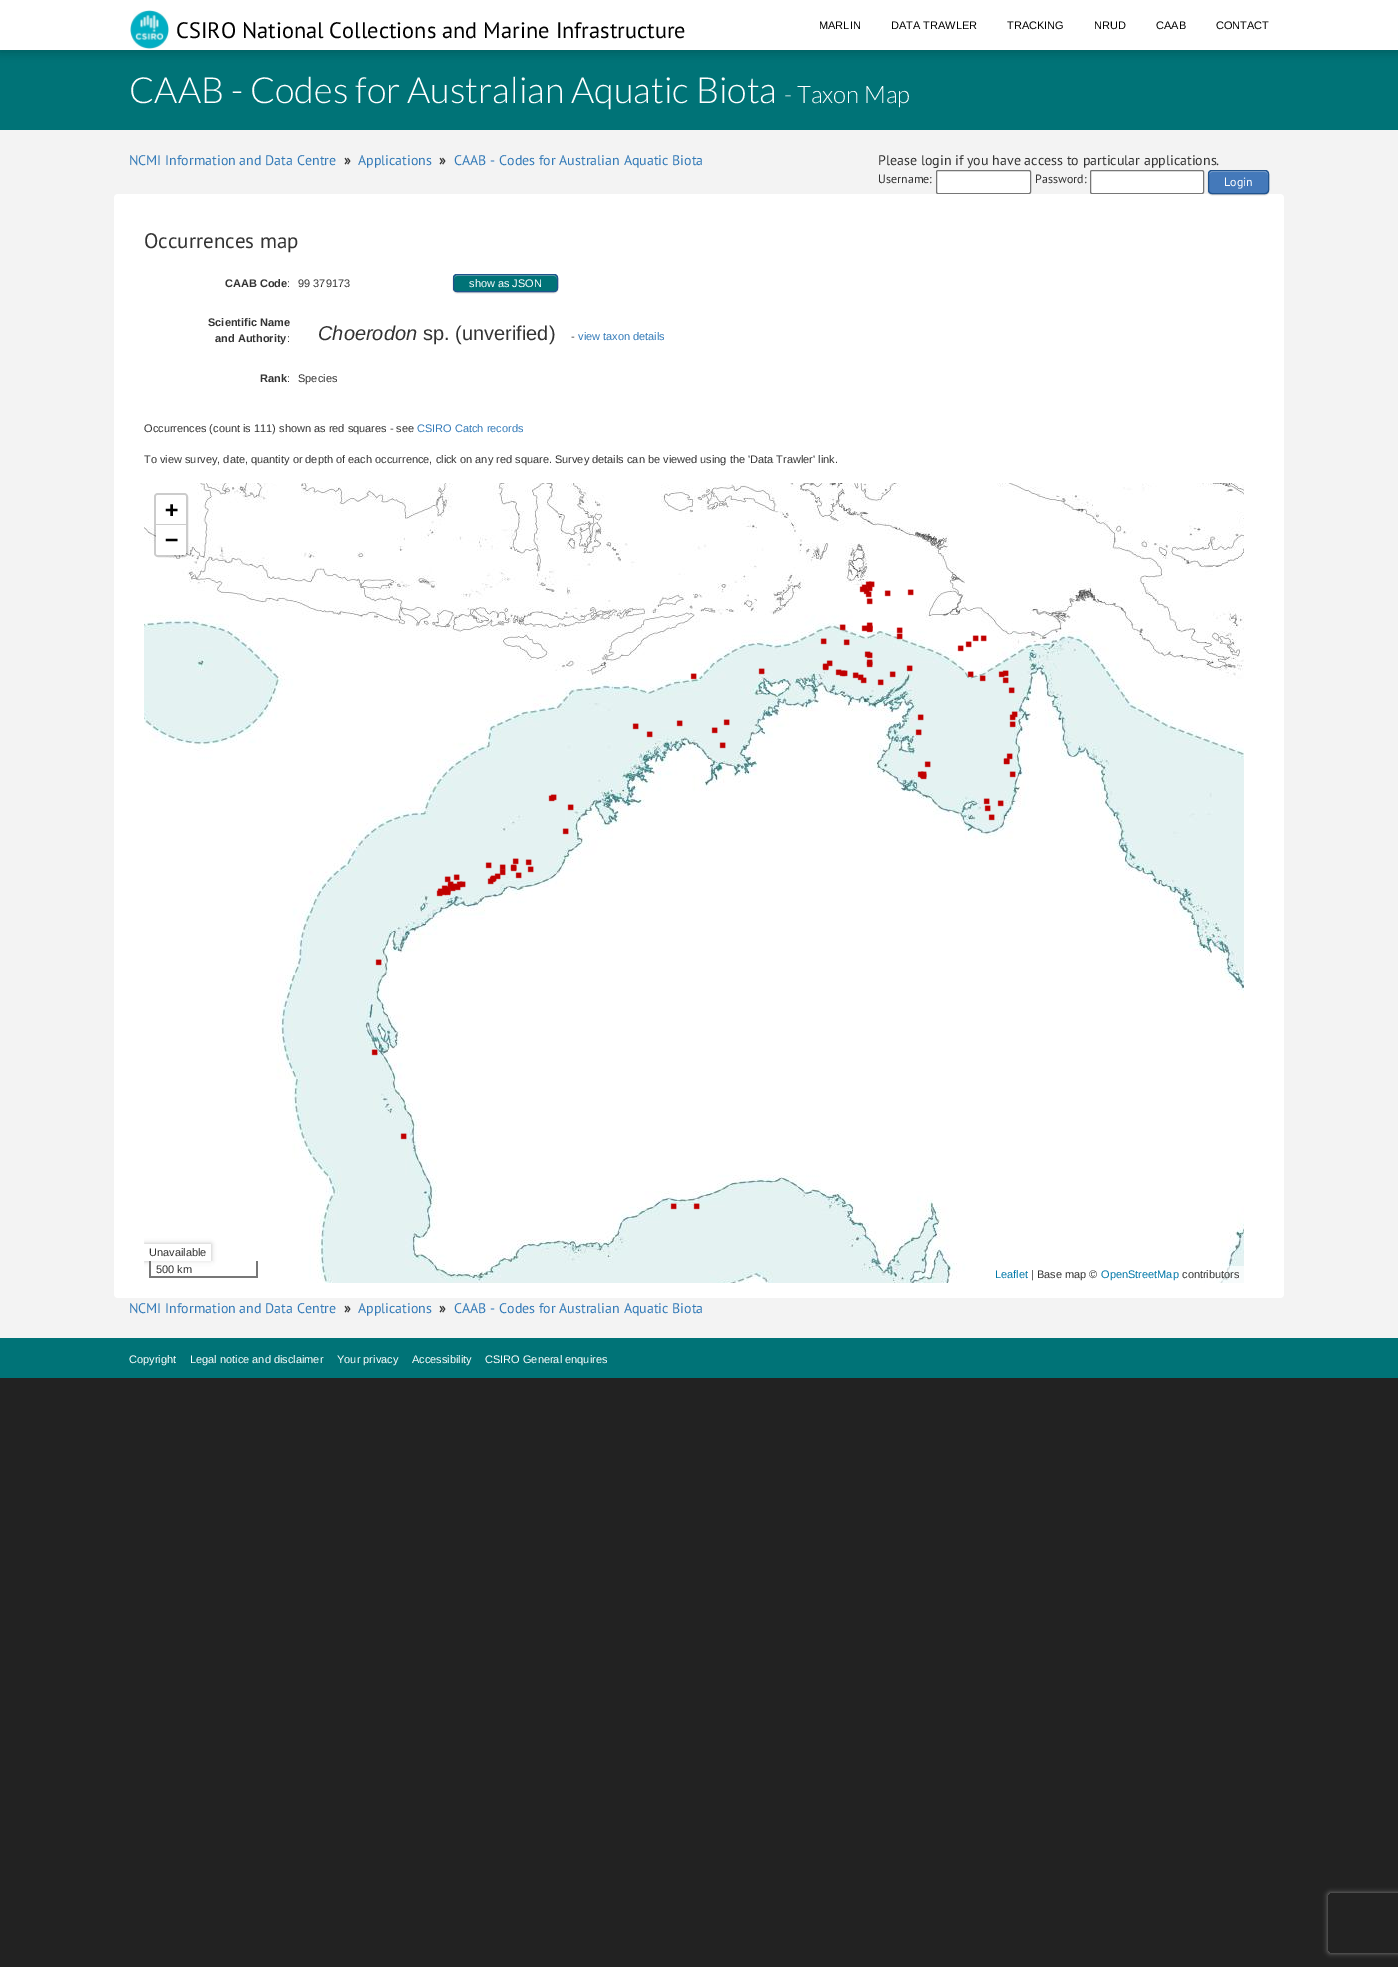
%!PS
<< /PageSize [1398 1967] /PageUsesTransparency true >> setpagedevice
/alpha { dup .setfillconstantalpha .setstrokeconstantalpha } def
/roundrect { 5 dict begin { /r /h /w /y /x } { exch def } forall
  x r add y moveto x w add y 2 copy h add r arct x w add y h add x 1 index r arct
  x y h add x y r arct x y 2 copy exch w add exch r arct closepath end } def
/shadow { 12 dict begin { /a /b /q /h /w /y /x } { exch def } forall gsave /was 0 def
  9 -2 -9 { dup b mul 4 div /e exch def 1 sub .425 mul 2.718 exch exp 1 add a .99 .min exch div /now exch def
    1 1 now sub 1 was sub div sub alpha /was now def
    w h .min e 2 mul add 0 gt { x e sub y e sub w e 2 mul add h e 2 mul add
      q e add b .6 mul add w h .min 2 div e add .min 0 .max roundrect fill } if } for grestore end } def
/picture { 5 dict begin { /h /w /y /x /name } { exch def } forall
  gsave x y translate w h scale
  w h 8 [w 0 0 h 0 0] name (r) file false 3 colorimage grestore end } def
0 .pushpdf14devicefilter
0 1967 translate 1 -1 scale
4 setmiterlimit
0.133 setgray
0 0 1398 1967 rectfill
0.953 setgray
0 130 1398 1208 rectfill
0 0.451 0.467 setrgbcolor
0 50 1398 80 rectfill
0 setgray
0 2 1398 50 0 5 0.2 shadow
1 setgray
0 0 1398 50 rectfill
(img1.rgb) 130 10 39 39 picture
/PTSans-Regular [22.4 0 0 -22.4 0 0] selectfont
0 setgray
176 38 moveto (CSIRO National Collections and Marine Infrastructure) show
/LiberationSans-Regular [11 0 0 -11 0 0] selectfont
819 29 moveto (MARLIN) show
891 29 moveto (DATA TRAWLER) show
1007 29 moveto (TRACKING) show
1094 29 moveto (NRUD) show
1156 29 moveto (CAAB) show
1216 29 moveto (CONTACT) show
/Lato-Light [36 0 0 -36 0 0] selectfont
1 setgray
129 103 moveto (CAAB - Codes for Australian Aquatic Biota) show
/Lato-Light [24 0 0 -24 0 0] selectfont
784 103 moveto (- Taxon Map) show
/PTSans-Regular [14 0 0 -14 0 0] selectfont
0.2 0.478 0.718 setrgbcolor
129 165 moveto (NCMI Information and Data Centre) show
/PTSans-Bold [14 0 0 -14 0 0] selectfont
0.2 setgray
344 165 moveto (») show
/PTSans-Regular [14 0 0 -14 0 0] selectfont
0.2 0.478 0.718 setrgbcolor
358 165 moveto (Applications) show
/PTSans-Bold [14 0 0 -14 0 0] selectfont
0.2 setgray
439 165 moveto (») show
/PTSans-Regular [14 0 0 -14 0 0] selectfont
0.2 0.478 0.718 setrgbcolor
454 165 moveto (CAAB - Codes for Australian Aquatic Biota) show
0.2 setgray
878 165 moveto (Please login if you have access to particular applications.) show
/PTSans-Regular [12 0 0 -12 0 0] selectfont
878 183 moveto (Username:) show
1 setgray
936.5 170.5 94 23 1.5 roundrect gsave fill grestore
0.463 setgray
stroke
0.2 setgray
1035 183 moveto (Password:) show
1 setgray
1090.5 170.5 113 23 1.5 roundrect gsave fill grestore
0.463 setgray
stroke
1 setgray
114 194 1170 1104 4 roundrect fill
0 setgray
1208 171 61 24 4 0.5 0.2 shadow
0.267 0.475 0.729 setrgbcolor
1208 170 61 24 4 roundrect fill
0.561 0.686 0.839 setrgbcolor
newpath 1212 172 moveto 1265 172 lineto 1267 172 1268 173 1268 175 curveto 1268 169 1261 171 1256 171 curveto 1221 171 lineto 1216 171 1209 169 1209 175 curveto 1209 173 1210 172 1212 172 curveto closepath fill
0.125 0.325 0.553 setrgbcolor
1208.5 170.5 60 23 3.5 roundrect stroke
1 setgray
1224 186 moveto (Login) show
gsave
newpath 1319 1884 moveto 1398 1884 lineto 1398 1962 lineto 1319 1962 lineto closepath 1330 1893 moveto 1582 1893 lineto 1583 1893 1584 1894 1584 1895 curveto 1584 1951 lineto 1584 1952 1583 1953 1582 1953 curveto 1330 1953 lineto 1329 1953 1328 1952 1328 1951 curveto 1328 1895 lineto 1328 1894 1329 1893 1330 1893 curveto closepath eoclip newpath
0.502 setgray
1328 1893 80 60 2 2.5 1 shadow
grestore
/PTSans-Regular [21 0 0 -21 0 0] selectfont
0.2 setgray
144 248 moveto (Occurrences map) show
/LiberationSans-Bold [11 0 0 -11 0 0] selectfont
225 287 moveto (CAAB Code) show
/LiberationSans-Regular [11 0 0 -11 0 0] selectfont
287 287 moveto (:) show
298 287 moveto (99 379173) show
0 setgray
453 275 105 18 4 0.5 0.2 shadow
0 0.451 0.467 setrgbcolor
453 274 105 18 4 roundrect fill
0.4 0.671 0.678 setrgbcolor
newpath 457 276 moveto 554 276 lineto 556 276 557 277 557 279 curveto 557 271 541 275 538 275 curveto 473 275 lineto 470 275 454 271 454 279 curveto 454 277 455 276 457 276 curveto closepath fill
0.125 0.325 0.553 setrgbcolor
453.5 274.5 104 17 3.5 roundrect stroke
1 setgray
469 287 moveto (show as JSON) show
/LiberationSans-Bold [11 0 0 -11 0 0] selectfont
0.2 setgray
208 326 moveto (Scientific Name) show
215 342 moveto (and Authority) show
/LiberationSans-Regular [11 0 0 -11 0 0] selectfont
287 342 moveto (:) show
/LiberationSans-Italic [20 0 0 -20 0 0] selectfont
318 340 moveto (Choerodon) show
/LiberationSans-Regular [20 0 0 -20 0 0] selectfont
423 340 moveto (sp. \(unverified\)) show
/LiberationSans-Regular [11 0 0 -11 0 0] selectfont
571 340 moveto (-) show
0.2 0.478 0.718 setrgbcolor
578 340 moveto (view taxon details) show
/LiberationSans-Bold [11 0 0 -11 0 0] selectfont
0.2 setgray
260 382 moveto (Rank) show
/LiberationSans-Regular [11 0 0 -11 0 0] selectfont
287 382 moveto (:) show
298 382 moveto (Species) show
144 432 moveto (Occurrences \(count is 111\) shown as red squares - see) show
0.2 0.478 0.718 setrgbcolor
417 432 moveto (CSIRO Catch records) show
0.2 setgray
144 463 moveto (To view survey, date, quantity or depth of each occurrence, click on any red square. Survey details can be viewed using the 'Data Trawler' link.) show
(img2.rgb) 144 483 213 196 picture
(img3.rgb) 357 483 256 196 picture
(img4.rgb) 613 483 256 196 picture
(img5.rgb) 869 483 256 196 picture
(img6.rgb) 1125 483 119 196 picture
(img7.rgb) 144 679 213 256 picture
(img8.rgb) 357 679 256 256 picture
(img9.rgb) 613 679 256 256 picture
(img10.rgb) 869 679 256 256 picture
(img11.rgb) 1125 679 119 256 picture
(img12.rgb) 144 935 213 256 picture
(img13.rgb) 357 935 256 256 picture
(img14.rgb) 613 935 256 256 picture
(img15.rgb) 1125 935 119 256 picture
(img16.rgb) 144 1191 213 92 picture
(img17.rgb) 357 1191 256 92 picture
(img18.rgb) 613 1191 256 92 picture
(img19.rgb) 869 1191 256 92 picture
(img20.rgb) 1125 1191 119 92 picture
(img21.rgb) 865 581 7 7 picture
(img22.rgb) 861 584 7 5 picture
(img23.rgb) 868 581 7 7 picture
(img24.rgb) 859 586 7 7 picture
(img25.rgb) 866 586 7 6 picture
(img26.rgb) 863 588 7 7 picture
(img27.rgb) 884 590 7 7 picture
(img27.rgb) 907 589 7 7 picture
(img28.rgb) 865 591 7 7 picture
(img27.rgb) 866 598 7 7 picture
(img29.rgb) 839 624 7 7 picture
(img27.rgb) 866 622 7 7 picture
(img31.rgb) 866 625 7 7 picture
(img30.rgb) 861 625 7 7 picture
(img32.rgb) 866 625 7 7 picture
(img33.rgb) 866 626 7 7 picture
(img34.rgb) 896 627 7 7 picture
(img35.rgb) 820 638 7 7 picture
(img36.rgb) 843 639 7 7 picture
(img37.rgb) 896 633 7 7 picture
(img38.rgb) 957 645 7 7 picture
(img27.rgb) 965 641 7 7 picture
(img27.rgb) 972 635 7 7 picture
(img27.rgb) 980 635 7 7 picture
(img39.rgb) 864 651 7 7 picture
(img40.rgb) 866 652 7 7 picture
(img39.rgb) 826 660 7 7 picture
(img39.rgb) 866 659 7 7 picture
(img41.rgb) 822 663 7 7 picture
(img42.rgb) 866 661 7 7 picture
(img43.rgb) 758 668 7 7 picture
(img44.rgb) 822 664 7 7 picture
(img39.rgb) 835 669 7 7 picture
(img45.rgb) 839 670 7 7 picture
(img46.rgb) 906 665 7 7 picture
(img47.rgb) 690 673 7 7 picture
(img48.rgb) 841 670 7 7 picture
(img39.rgb) 852 672 7 7 picture
(img49.rgb) 857 674 7 7 picture
(img39.rgb) 889 671 7 7 picture
(img50.rgb) 967 671 7 7 picture
(img51.rgb) 979 675 7 7 picture
(img53.rgb) 1002 670 7 7 picture
(img52.rgb) 998 671 7 7 picture
(img54.rgb) 860 677 7 7 picture
(img39.rgb) 877 679 7 7 picture
(img55.rgb) 1002 677 7 7 picture
(img56.rgb) 1008 687 7 7 picture
(img57.rgb) 917 714 7 7 picture
(img58.rgb) 1011 711 7 7 picture
(img59.rgb) 1009 714 7 7 picture
(img39.rgb) 632 723 7 7 picture
(img39.rgb) 646 731 7 7 picture
(img39.rgb) 676 720 7 7 picture
(img39.rgb) 711 727 7 7 picture
(img39.rgb) 723 719 7 7 picture
(img60.rgb) 915 729 7 7 picture
(img61.rgb) 1009 721 7 7 picture
(img39.rgb) 719 742 7 7 picture
(img39.rgb) 1006 753 7 7 picture
(img62.rgb) 1003 758 7 7 picture
(img39.rgb) 924 761 7 7 picture
(img63.rgb) 1003 758 7 7 picture
(img64.rgb) 917 771 7 7 picture
(img65.rgb) 920 771 7 7 picture
(img66.rgb) 1009 771 7 7 picture
(img67.rgb) 919 773 7 6 picture
(img68.rgb) 920 773 7 7 picture
(img39.rgb) 550 794 7 7 picture
(img69.rgb) 548 795 7 7 picture
(img70.rgb) 567 804 7 7 picture
(img39.rgb) 983 798 7 7 picture
(img71.rgb) 997 800 7 7 picture
(img39.rgb) 984 805 7 7 picture
(img39.rgb) 988 814 7 7 picture
(img72.rgb) 562 828 7 7 picture
(img39.rgb) 485 862 7 7 picture
(img39.rgb) 499 864 7 7 picture
(img39.rgb) 512 858 7 7 picture
(img39.rgb) 525 859 7 7 picture
(img73.rgb) 510 864 7 7 picture
(img39.rgb) 444 876 7 7 picture
(img39.rgb) 453 874 7 7 picture
(img76.rgb) 499 869 7 7 picture
(img75.rgb) 494 873 7 7 picture
(img74.rgb) 490 875 7 7 picture
(img77.rgb) 510 865 7 7 picture
(img78.rgb) 515 872 7 7 picture
(img79.rgb) 527 866 7 7 picture
(img80.rgb) 489 876 7 7 picture
(img81.rgb) 447 881 7 6 picture
(img86.rgb) 459 881 7 7 picture
(img82.rgb) 456 881 7 7 picture
(img83.rgb) 487 878 7 7 picture
(img85.rgb) 451 883 7 7 picture
(img84.rgb) 447 883 7 7 picture
(img87.rgb) 441 885 7 5 picture
(img88.rgb) 454 884 7 7 picture
(img92.rgb) 449 886 7 6 picture
(img91.rgb) 444 886 7 7 picture
(img89.rgb) 443 886 7 4 picture
(img90.rgb) 437 888 7 7 picture
(img95.rgb) 444 889 7 6 picture
(img94.rgb) 440 890 7 6 picture
(img93.rgb) 436 890 7 7 picture
(img96.rgb) 445 890 6 6 picture
(img97.rgb) 375 959 7 7 picture
(img98.rgb) 371 1049 7 7 picture
(img99.rgb) 400 1133 7 7 picture
(img100.rgb) 670 1203 7 7 picture
(img101.rgb) 693 1203 7 7 picture
0.2 alpha
0 setgray
2 setlinewidth
155 494 32 62 3 roundrect stroke
1 alpha
1 setgray
newpath 158 495 moveto 184 495 lineto 185 495 186 496 186 497 curveto 186 525 lineto 156 525 lineto 156 497 lineto 156 496 157 495 158 495 curveto closepath fill
0.8 setgray
156 524 30 1 rectfill
/DejaVuSansMono-Bold [22 0 0 -22 0 0] selectfont
0 setgray
165 517 moveto (+) show
1 setgray
newpath 156 525 moveto 186 525 lineto 186 553 lineto 186 554 185 555 184 555 curveto 158 555 lineto 157 555 156 554 156 553 curveto closepath fill
0 setgray
165 547 moveto (−) show
gsave
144 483 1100 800 rectclip
newpath 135 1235 moveto 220 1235 lineto 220 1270 lineto 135 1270 lineto closepath 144 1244 moveto 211 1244 lineto 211 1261 lineto 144 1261 lineto closepath eoclip newpath
0.733 setgray
144 1244 67 17 0 2.5 1 shadow
grestore
/LiberationSans-Regular [11 0 0 -11 0 0] selectfont
0.2 setgray
149 1256 moveto (Unavailable) show
0.5 alpha
1 setgray
151 1261 62 4 rectfill
1 alpha
0.467 setgray
256 1261 2 17 rectfill
149 1276 109 2 rectfill
149 1261 2 17 rectfill
0.2 setgray
156 1273 moveto (500 km) show
0.7 alpha
1 setgray
1206 1266 38 17 rectfill
1 alpha
0 0.471 0.659 setrgbcolor
995 1278 moveto (Leaflet) show
0.2 setgray
1031 1278 moveto (| Base map ©) show
0 0.471 0.659 setrgbcolor
1101 1278 moveto (OpenStreetMap) show
0.2 setgray
1182 1278 moveto (contributors) show
/PTSans-Regular [14 0 0 -14 0 0] selectfont
0.2 0.478 0.718 setrgbcolor
129 1313 moveto (NCMI Information and Data Centre) show
/PTSans-Bold [14 0 0 -14 0 0] selectfont
0.2 setgray
344 1313 moveto (») show
/PTSans-Regular [14 0 0 -14 0 0] selectfont
0.2 0.478 0.718 setrgbcolor
358 1313 moveto (Applications) show
/PTSans-Bold [14 0 0 -14 0 0] selectfont
0.2 setgray
439 1313 moveto (») show
/PTSans-Regular [14 0 0 -14 0 0] selectfont
0.2 0.478 0.718 setrgbcolor
454 1313 moveto (CAAB - Codes for Australian Aquatic Biota) show
0 0.451 0.467 setrgbcolor
0 1338 1398 40 rectfill
/LiberationSans-Regular [11 0 0 -11 0 0] selectfont
1 setgray
129 1363 moveto (Copyright) show
190 1363 moveto (Legal notice and disclaimer) show
337 1363 moveto (Your privacy) show
412 1363 moveto (Accessibility) show
485 1363 moveto (CSIRO General enquires) show
.poppdf14devicefilter showpage
